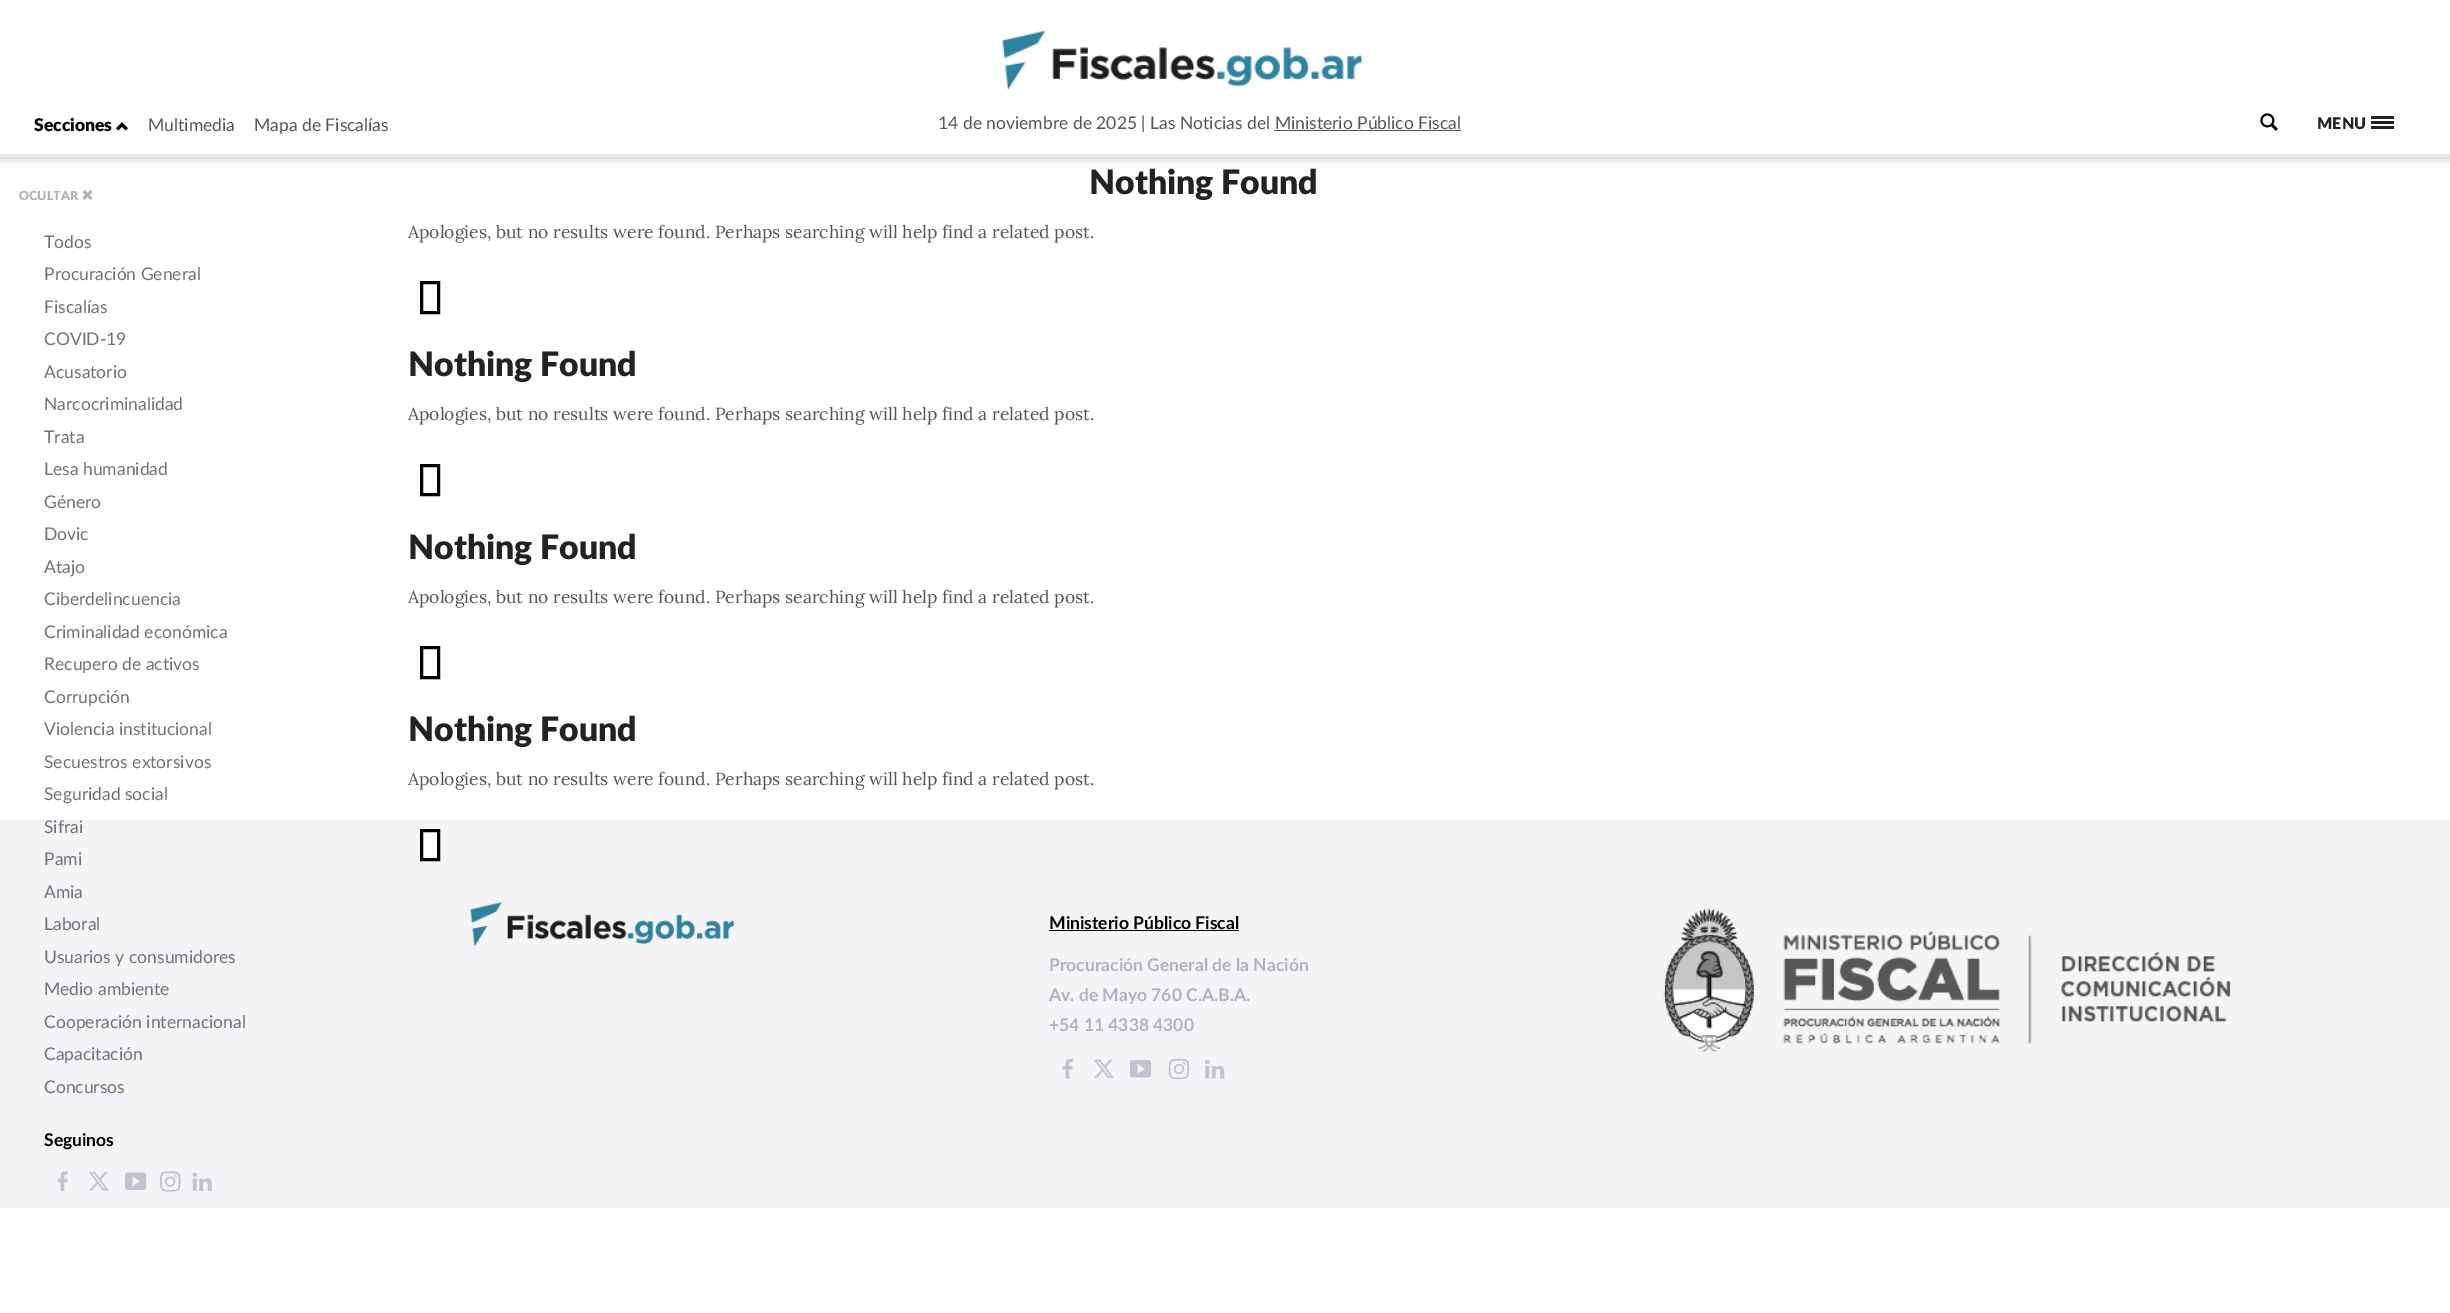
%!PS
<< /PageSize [2450 1313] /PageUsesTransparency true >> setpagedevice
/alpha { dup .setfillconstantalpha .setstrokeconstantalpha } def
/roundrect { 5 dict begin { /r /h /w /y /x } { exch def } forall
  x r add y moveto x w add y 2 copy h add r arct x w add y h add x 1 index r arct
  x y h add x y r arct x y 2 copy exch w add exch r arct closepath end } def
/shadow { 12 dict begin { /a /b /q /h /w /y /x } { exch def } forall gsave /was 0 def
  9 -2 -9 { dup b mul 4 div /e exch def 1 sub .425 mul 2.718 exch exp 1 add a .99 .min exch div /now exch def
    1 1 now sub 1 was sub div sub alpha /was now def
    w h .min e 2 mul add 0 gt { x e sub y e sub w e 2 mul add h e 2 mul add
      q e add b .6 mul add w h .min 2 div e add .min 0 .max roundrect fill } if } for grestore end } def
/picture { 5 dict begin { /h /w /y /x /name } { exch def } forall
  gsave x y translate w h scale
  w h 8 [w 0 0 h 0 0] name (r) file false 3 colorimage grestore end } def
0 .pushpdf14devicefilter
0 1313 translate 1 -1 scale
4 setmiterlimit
1 setgray
0 0 2450 1313 rectfill
gsave
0 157 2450 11 rectclip
0.757 setgray
0 1 2450 157 0 5 1 shadow
grestore
0.91 0.918 0.918 setrgbcolor
0 154 2450 3 rectfill
/Lato-Black [17.5 0 0 -17.5 0 0] selectfont
0 setgray
34 131 moveto (Secciones) show
(img1.rgb) 116 122 12 9 picture
/Lato-Regular [17.5 0 0 -17.5 0 0] selectfont
0.333 setgray
148 131 moveto (Multimedia) show
254 131 moveto (Mapa de Fiscalías) show
(img2.rgb) 1002 30 361 60 picture
938 129 moveto (14 de noviembre de 2025 | Las Noticias del Ministerio Público Fiscal) show
1274 130 187 1 rectfill
(img3.rgb) 2260 113 18 18 picture
/Lato-Black [16 0 0 -16 0 0] selectfont
0.133 0.133 0.157 setrgbcolor
2317 129 moveto (MENU) show
0.133 setgray
2371 121 23 3 rectfill
2371 116 23 3 rectfill
2371 126 23 3 rectfill
/Lato-Black [12.5 0 0 -12.5 0 0] selectfont
0.686 0.702 0.749 setrgbcolor
19 200 moveto (OCULTAR) show
(img4.rgb) 82 190 11 10 picture
/Lato-Regular [17.5 0 0 -17.5 0 0] selectfont
0.435 0.451 0.475 setrgbcolor
44 248 moveto (Todos) show
44 280 moveto (Procuración General) show
44 313 moveto (Fiscalías) show
44 345 moveto (COVID-19) show
44 378 moveto (Acusatorio) show
44 410 moveto (Narcocriminalidad) show
44 443 moveto (Trata) show
44 475 moveto (Lesa humanidad) show
44 508 moveto (Género) show
44 540 moveto (Dovic) show
44 573 moveto (Atajo) show
44 605 moveto (Ciberdelincuencia) show
44 638 moveto (Criminalidad económica) show
44 670 moveto (Recupero de activos) show
44 703 moveto (Corrupción) show
44 735 moveto (Violencia institucional) show
44 768 moveto (Secuestros extorsivos) show
44 800 moveto (Seguridad social) show
0.961 0.961 0.969 setrgbcolor
0 820 2450 388 rectfill
0.435 0.451 0.475 setrgbcolor
44 833 moveto (Sifrai) show
44 865 moveto (Pami) show
44 898 moveto (Amia) show
44 930 moveto (Laboral) show
44 963 moveto (Usuarios y consumidores) show
44 995 moveto (Medio ambiente) show
44 1028 moveto (Cooperación internacional) show
44 1060 moveto (Capacitación) show
44 1093 moveto (Concursos) show
/Lato-Bold [17.5 0 0 -17.5 0 0] selectfont
0 setgray
44 1146 moveto (Seguinos) show
(img5.rgb) 57 1171 11 21 picture
(img6.rgb) 89 1172 20 19 picture
(img7.rgb) 125 1172 22 18 picture
(img8.rgb) 160 1171 21 21 picture
(img9.rgb) 192 1172 20 19 picture
/Lato-Black [33.75 0 0 -33.75 0 0] selectfont
0.133 setgray
1089 194 moveto (Nothing Found) show
/Lora-Regular [17.5 0 0 -17.5 0 0] selectfont
0.333 setgray
408 238 moveto (Apologies, but no results were found. Perhaps searching will help find a related post.) show
0 setgray
3 setlinewidth
421.5 282.5 17 30 rectstroke
/Lato-Black [33.75 0 0 -33.75 0 0] selectfont
0.133 setgray
408 376 moveto (Nothing Found) show
/Lora-Regular [17.5 0 0 -17.5 0 0] selectfont
0.333 setgray
408 420 moveto (Apologies, but no results were found. Perhaps searching will help find a related post.) show
0 setgray
421.5 465.5 17 29 rectstroke
/Lato-Black [33.75 0 0 -33.75 0 0] selectfont
0.133 setgray
408 559 moveto (Nothing Found) show
/Lora-Regular [17.5 0 0 -17.5 0 0] selectfont
0.333 setgray
408 603 moveto (Apologies, but no results were found. Perhaps searching will help find a related post.) show
0 setgray
421.5 647.5 17 30 rectstroke
/Lato-Black [33.75 0 0 -33.75 0 0] selectfont
0.133 setgray
408 741 moveto (Nothing Found) show
/Lora-Regular [17.5 0 0 -17.5 0 0] selectfont
0.333 setgray
408 785 moveto (Apologies, but no results were found. Perhaps searching will help find a related post.) show
1 setgray
newpath 421.5 830.5 moveto 438.5 830.5 lineto 438.5 859.5 lineto 421.5 859.5 lineto closepath gsave fill grestore
0 setgray
stroke
(img10.rgb) 470 901 265 46 picture
/Lato-Bold [17.5 0 0 -17.5 0 0] selectfont
1049 929 moveto (Ministerio Público Fiscal) show
1049 930 190 1 rectfill
0.686 0.702 0.749 setrgbcolor
1049 971 moveto (Procuración General de la Nación) show
1049 1001 moveto (Av. de Mayo 760 C.A.B.A.) show
1049 1031 moveto (+54 11 4338 4300) show
(img11.rgb) 1062 1058 11 21 picture
(img12.rgb) 1094 1059 20 19 picture
(img13.rgb) 1130 1060 22 18 picture
(img14.rgb) 1168 1058 22 22 picture
(img15.rgb) 1205 1060 20 19 picture
(img16.rgb) 1663 908 568 145 picture
.poppdf14devicefilter showpage
